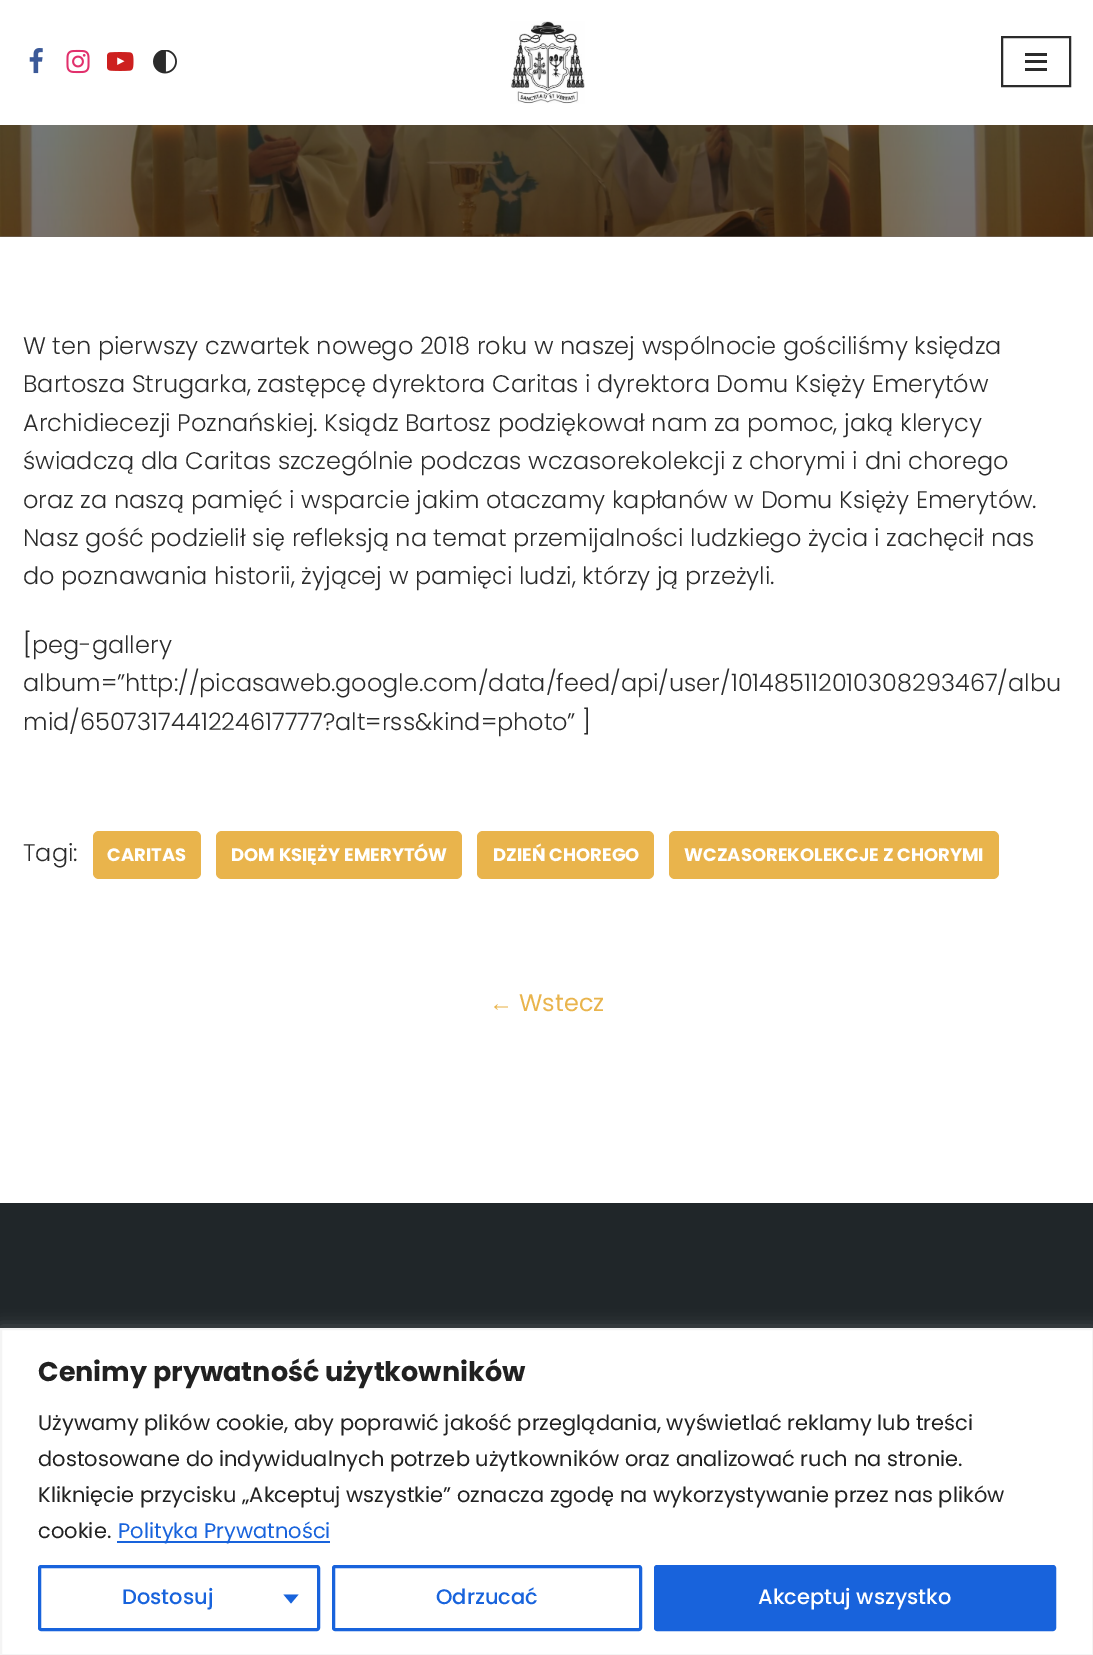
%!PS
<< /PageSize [1093 1655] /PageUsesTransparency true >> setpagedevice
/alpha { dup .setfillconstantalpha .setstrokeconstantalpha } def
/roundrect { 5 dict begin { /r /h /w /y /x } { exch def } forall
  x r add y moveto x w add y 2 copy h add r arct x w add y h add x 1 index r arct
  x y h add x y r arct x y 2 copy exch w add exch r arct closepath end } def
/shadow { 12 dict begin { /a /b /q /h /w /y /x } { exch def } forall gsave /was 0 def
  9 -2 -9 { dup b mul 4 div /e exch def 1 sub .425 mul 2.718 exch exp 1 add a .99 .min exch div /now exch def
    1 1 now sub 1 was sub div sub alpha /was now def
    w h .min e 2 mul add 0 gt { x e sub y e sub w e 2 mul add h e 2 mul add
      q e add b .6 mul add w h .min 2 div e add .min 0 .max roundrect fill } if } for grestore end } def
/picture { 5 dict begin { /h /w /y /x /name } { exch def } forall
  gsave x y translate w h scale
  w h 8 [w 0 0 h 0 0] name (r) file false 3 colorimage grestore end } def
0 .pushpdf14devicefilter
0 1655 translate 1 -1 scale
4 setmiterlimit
1 setgray
0 0 1093 1655 rectfill
(img1.rgb) 29 48 14 26 picture
(img2.rgb) 66 49 24 25 picture
(img3.rgb) 107 52 27 19 picture
(img4.rgb) 153 50 24 24 picture
(img5.rgb) 510 21 75 83 picture
0.169 setgray
2 setlinewidth
1002 37 68 49 rectstroke
1025 53 22 3 rectfill
1025 60 22 3 rectfill
1025 68 22 3 rectfill
(img6.rgb) 0 125 1093 112 picture
0.6 alpha
gsave newpath 0 125 moveto 1093 125 lineto 1093 237 lineto 0 237 lineto closepath clip newpath
<< /ShadingType 2 /ColorSpace /DeviceRGB /Coords [547 -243 547 237] /Extend [true true] /Function << /FunctionType 2 /Domain [0 1] /C0 [0.031 0.255 0.361] /C1 [0.11 0.067 0.039] /N 1 >> >> shfill grestore
/Poppins-Light [24 0 0 -24 0 0] selectfont
1 alpha
23 354 moveto (W ten pierwszy czwartek nowego 2018 roku w naszej wspólnocie gościliśmy księdza) show
23 392 moveto (Bartosza Strugarka, zastępcę dyrektora Caritas i dyrektora Domu Księży Emerytów) show
23 431 moveto (Archidiecezji Poznańskiej. Ksiądz Bartosz podziękował nam za pomoc, jaką klerycy) show
23 469 moveto (świadczą dla Caritas szczególnie podczas wczasorekolekcji z chorymi i dni chorego) show
23 508 moveto (oraz za naszą pamięć i wsparcie jakim otaczamy kapłanów w Domu Księży Emerytów.) show
23 546 moveto (Nasz gość podzielił się refleksją na temat przemijalności ludzkiego życia i zachęcił nas) show
23 584 moveto (do poznawania historii, żyjącej w pamięci ludzi, którzy ją przeżyli.) show
23 653 moveto ([peg-gallery) show
23 691 moveto (album=”http://picasaweb.google.com/data/feed/api/user/101485112010308293467/albu) show
23 730 moveto (mid/6507317441224617777?alt=rss&kind=photo” ]) show
23 861 moveto (Tagi:) show
0.914 0.706 0.298 setrgbcolor
93 831 108 48 6 roundrect fill
/Poppins-Bold [18 0 0 -18 0 0] selectfont
1 setgray
107 861 moveto (CARITAS) show
0.914 0.706 0.298 setrgbcolor
216 831 246 48 6 roundrect fill
1 setgray
231 861 moveto (DOM KSIĘŻY EMERYTÓW) show
0.914 0.706 0.298 setrgbcolor
477 831 177 48 6 roundrect fill
1 setgray
493 861 moveto (DZIEŃ CHOREGO) show
0.914 0.706 0.298 setrgbcolor
669 831 330 48 6 roundrect fill
1 setgray
684 861 moveto (WCZASOREKOLEKCJE Z CHORYMI) show
/LiberationSans-Regular [24 0 0 -24 0 0] selectfont
0.914 0.706 0.298 setrgbcolor
489 1011 moveto (←) show
/Poppins-Regular [24 0 0 -24 0 0] selectfont
519 1011 moveto (Wstecz) show
0.125 0.149 0.161 setrgbcolor
0 1203 1093 125 rectfill
0.675 0.671 0.671 setrgbcolor
0 1326 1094 329 0 7.5 0.3 shadow
1 setgray
newpath 1 1329 moveto 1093 1329 lineto 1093 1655 lineto 1 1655 lineto closepath gsave fill grestore
0.957 setgray
stroke
/Poppins-Bold [27 0 0 -27 0 0] selectfont
0.129 setgray
38 1381 moveto (Cenimy prywatność użytkowników) show
/Poppins-Regular [21 0 0 -21 0 0] selectfont
38 1430 moveto (Używamy plików cookie, aby poprawić jakość przeglądania, wyświetlać reklamy lub treści) show
38 1466 moveto (dostosowane do indywidualnych potrzeb użytkowników oraz analizować ruch na stronie.) show
38 1502 moveto (Kliknięcie przycisku „Akceptuj wszystkie” oznacza zgodę na wykorzystywanie przez nas plików) show
38 1538 moveto (cookie.) show
0.094 0.388 0.863 setrgbcolor
117 1541 213 2 rectfill
118 1538 moveto (Polityka Prywatności) show
3 setlinewidth
39.5 1566.5 279 63 1.5 roundrect stroke
/Poppins-Medium [21 0 0 -21 0 0] selectfont
122 1604 moveto (Dostosuj) show
newpath 283.5 1594.5 moveto 298.5 1594.5 lineto 291 1603.5 lineto closepath fill
333.5 1566.5 307 63 1.5 roundrect stroke
436 1604 moveto (Odrzucać) show
655.5 1566.5 399 63 1.5 roundrect gsave fill grestore
stroke
1 setgray
758 1604 moveto (Akceptuj wszystko) show
.poppdf14devicefilter showpage
